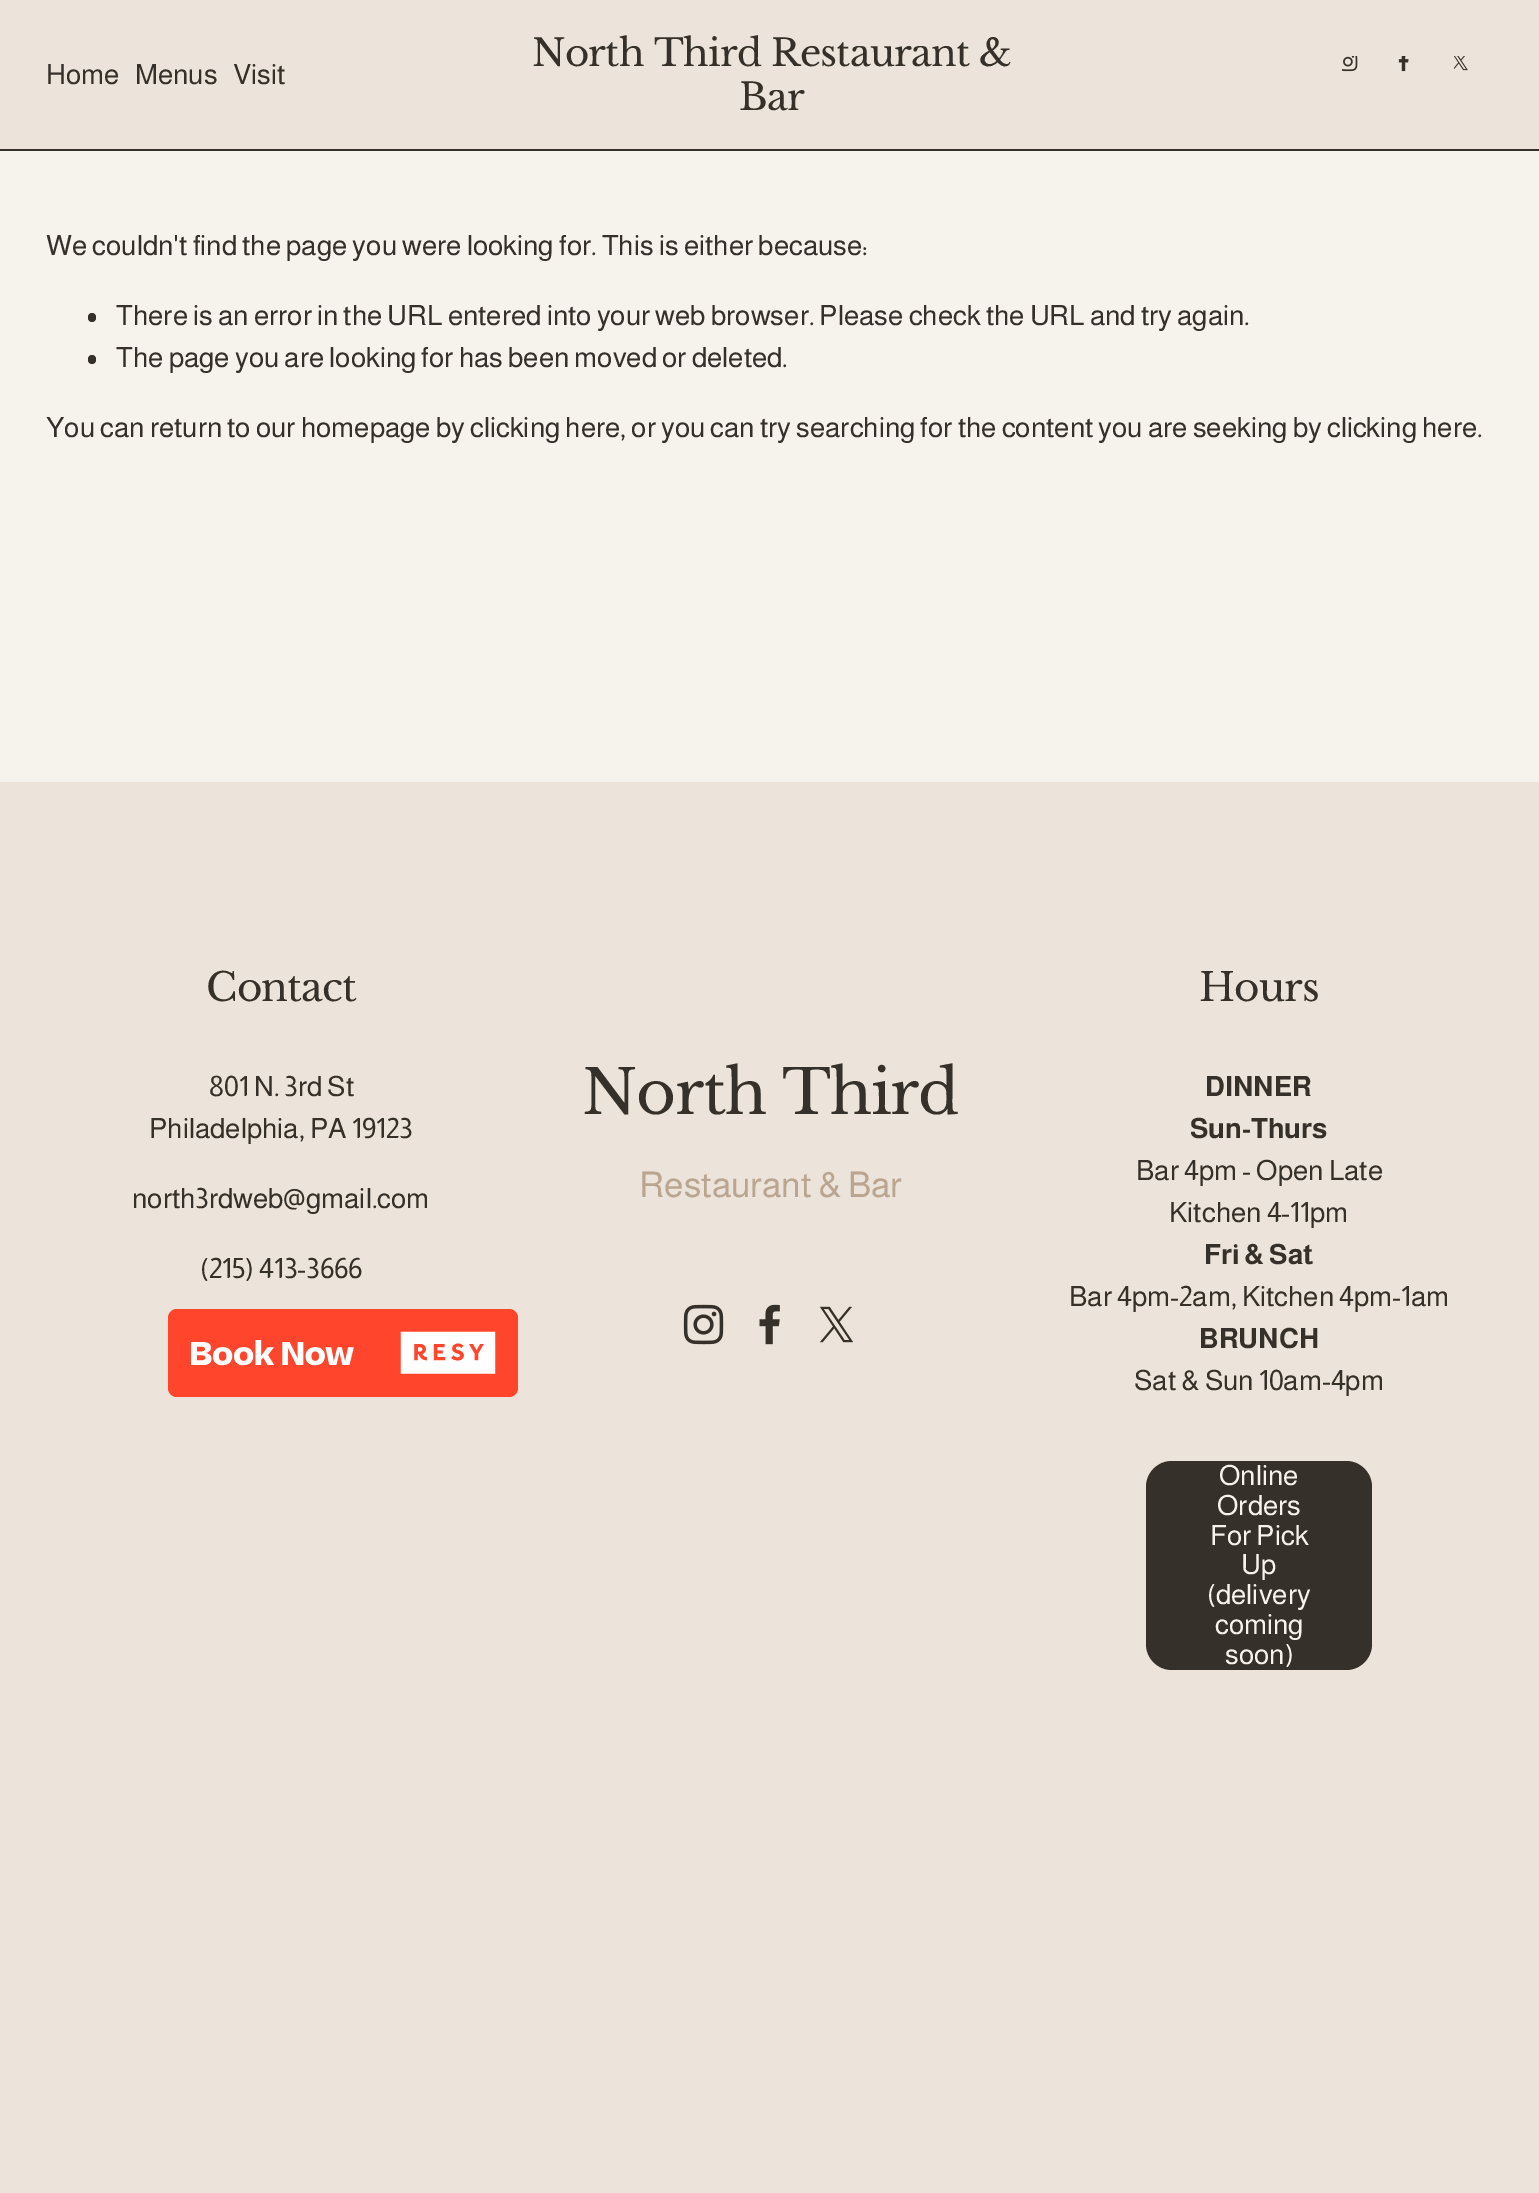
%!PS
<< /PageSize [1539 2193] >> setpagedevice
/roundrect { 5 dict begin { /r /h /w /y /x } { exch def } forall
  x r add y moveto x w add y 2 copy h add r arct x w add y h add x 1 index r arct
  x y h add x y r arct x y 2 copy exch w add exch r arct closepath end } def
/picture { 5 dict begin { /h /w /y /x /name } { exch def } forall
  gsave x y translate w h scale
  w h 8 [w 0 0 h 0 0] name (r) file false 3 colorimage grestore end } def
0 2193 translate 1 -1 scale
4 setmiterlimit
0.965 0.953 0.925 setrgbcolor
0 0 1539 2193 rectfill
0.925 0.894 0.855 setrgbcolor
0 0 1539 149 rectfill
/Almarai-Regular [28 0 0 -28 0 0] selectfont
0.212 0.188 0.165 setrgbcolor
46 84 moveto (Home) show
135 84 moveto (Menus) show
233 84 moveto (Visit) show
/LibreBaskerville-Regular [37.25 0 0 -37.25 0 0] selectfont
532 66 moveto -0.75 0 (North Third Restaurant &) ashow
739 110 moveto -0.75 0 (Bar) ashow
(img1.rgb) 1342 56 16 16 picture
(img2.rgb) 1398 56 11 16 picture
(img3.rgb) 1454 56 14 15 picture
0 149 1539 2 rectfill
/Almarai-Regular [28 0 0 -28 0 0] selectfont
46 255 moveto (We couldn't find the page you were looking for. This is either because:) show
88 313 8 9 4 roundrect fill
116 325 moveto (There is an error in the URL entered into your web browser. Please check the URL and try again.) show
88 355 8 9 4 roundrect fill
116 367 moveto (The page you are looking for has been moved or deleted.) show
46 437 moveto (You can return to our homepage by clicking here, or you can try searching for the content you are seeking by clicking here.) show
0.925 0.894 0.855 setrgbcolor
0 782 1539 1411 rectfill
/LibreBaskerville-Regular [39 0 0 -39 0 0] selectfont
0.212 0.188 0.165 setrgbcolor
206 1001 moveto -0.75 0 (Contact) ashow
/Almarai-Regular [28 0 0 -28 0 0] selectfont
209 1096 moveto (801 N. 3rd St) show
149 1138 moveto (Philadelphia, PA 19123) show
132 1208 moveto (north3rdweb@gmail.com) show
200 1278 moveto (\(215\) 413-3666) show
/LibreBaskerville-Regular [61.25 0 0 -61.25 0 0] selectfont
582 1114 moveto -1.25 0 (North Third) ashow
/LibreBaskerville-Regular [39 0 0 -39 0 0] selectfont
1199 1001 moveto -0.75 0 (Hours) ashow
/Almarai-Bold [28 0 0 -28 0 0] selectfont
1205 1096 moveto (DINNER) show
1190 1138 moveto (Sun-Thurs) show
/Almarai-Regular [28 0 0 -28 0 0] selectfont
1136 1180 moveto (Bar 4pm - Open Late) show
1169 1222 moveto (Kitchen 4-11pm) show
/Almarai-Bold [28 0 0 -28 0 0] selectfont
1204 1264 moveto (Fri & Sat) show
/Almarai-Regular [28 0 0 -28 0 0] selectfont
1069 1306 moveto (Bar 4pm-2am, Kitchen 4pm-1am) show
/Almarai-Bold [28 0 0 -28 0 0] selectfont
1199 1348 moveto (BRUNCH) show
/Almarai-Regular [28 0 0 -28 0 0] selectfont
1134 1390 moveto (Sat & Sun 10am-4pm) show
/Almarai-Regular [35.5 0 0 -35.5 0 0] selectfont
0.725 0.647 0.565 setrgbcolor
639 1197 moveto (Restaurant & Bar) show
1 0.275 0.176 setrgbcolor
168 1309 350 88 9 roundrect fill
(img4.rgb) 191 1331 305 43 picture
(img5.rgb) 683 1304 41 41 picture
(img6.rgb) 759 1304 21 41 picture
(img7.rgb) 819 1306 35 37 picture
0.212 0.188 0.165 setrgbcolor
1146 1461 226 209 26 roundrect fill
/Almarai-Regular [28 0 0 -28 0 0] selectfont
0.965 0.953 0.925 setrgbcolor
1219 1485 moveto (Online) show
1217 1515 moveto (Orders) show
1210 1545 moveto (For Pick) show
1241 1574 moveto (Up) show
1207 1604 moveto (\(delivery) show
1215 1634 moveto (coming) show
1225 1664 moveto (soon\)) show
showpage
